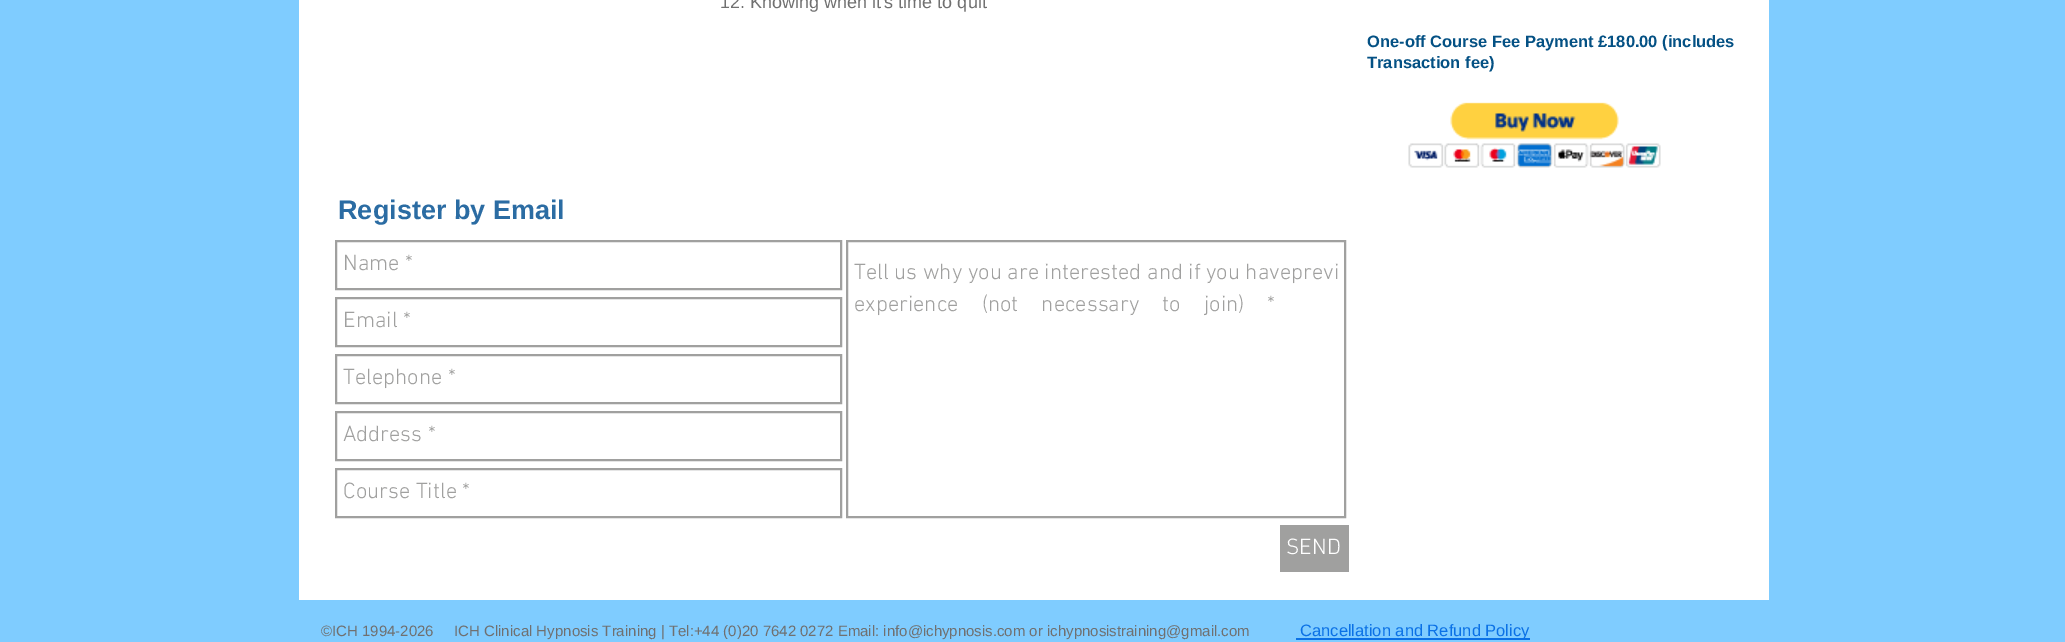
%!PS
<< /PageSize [2065 642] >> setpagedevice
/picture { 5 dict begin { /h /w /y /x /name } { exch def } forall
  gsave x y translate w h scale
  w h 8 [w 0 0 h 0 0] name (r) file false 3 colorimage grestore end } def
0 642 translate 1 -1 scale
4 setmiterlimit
0.498 0.8 1 setrgbcolor
0 0 2065 642 rectfill
1 setgray
299 0 1470 600 rectfill
/LiberationSans-Regular [18 0 0 -18 0 0] selectfont
0.439 setgray
720 8 moveto (12. Knowing when it's time to quit) show
/LiberationSans-Bold [16.5 0 0 -16.5 0 0] selectfont
0.016 0.318 0.518 setrgbcolor
1367 47 moveto (One-off Course Fee Payment £180.00 \(includes) show
1367 68 moveto (Transaction fee\)) show
(img1.rgb) 1408 102 253 66 picture
/LiberationSans-Bold [27 0 0 -27 0 0] selectfont
0.169 0.424 0.639 setrgbcolor
338 219 moveto (Register by Email) show
0.627 0.627 0.624 setrgbcolor
2 setlinewidth
336 241 505 48 rectstroke
/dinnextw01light-Light [22.5 0 0 -22.5 0 0] selectfont
343 270 moveto (Name *) show
847 241 498 276 rectstroke
854 279 moveto (Tell us why you are interested and if you haveprevi) show
854 311 moveto 17.5 0 32 (experience \(not necessary to join\) *) widthshow
336 298 505 48 rectstroke
343 327 moveto (Email *) show
336 355 505 48 rectstroke
343 384 moveto (Telephone *) show
336 412 505 48 rectstroke
343 441 moveto (Address *) show
336 469 505 48 rectstroke
343 498 moveto (Course Title *) show
1280 525 69 47 rectfill
1 setgray
1286 554 moveto (SEND) show
/LiberationSans-Regular [15 0 0 -15 0 0] selectfont
0.439 setgray
321 636 moveto (©ICH 1994-2026) show
454 636 moveto (ICH Clinical Hypnosis Training | Tel:+44 \(0\)20 7642 0272 Email: info@ichypnosis.com or ichypnosistraining@gmail.com) show
0.043 0.443 0.902 setrgbcolor
1296 638 234 2 rectfill
/LiberationSans-Regular [16.5 0 0 -16.5 0 0] selectfont
1300 636 moveto (Cancellation and Refund Policy) show
showpage
